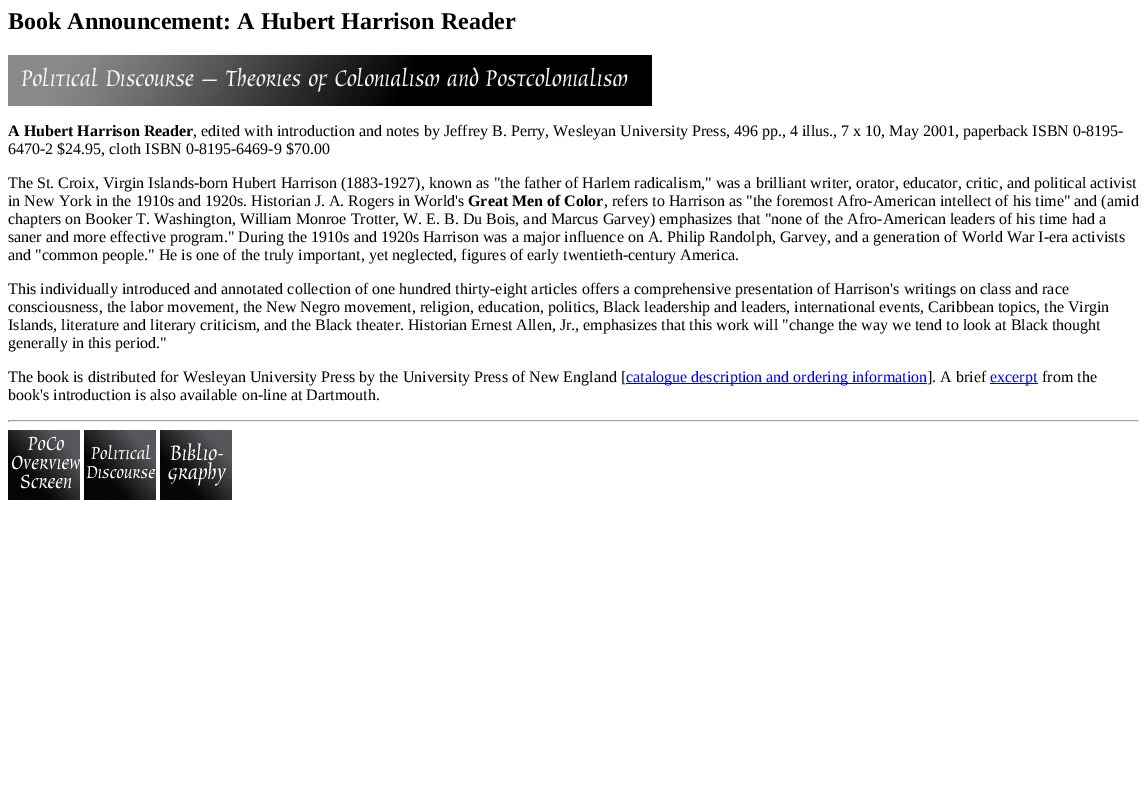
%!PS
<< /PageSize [1147 786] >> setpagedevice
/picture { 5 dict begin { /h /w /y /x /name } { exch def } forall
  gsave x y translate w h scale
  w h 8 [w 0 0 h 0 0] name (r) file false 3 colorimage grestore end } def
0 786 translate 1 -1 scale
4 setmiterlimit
1 setgray
0 0 1147 786 rectfill
/LiberationSerif-Bold [24 0 0 -24 0 0] selectfont
0 setgray
8 29 moveto (Book Announcement: A Hubert Harrison Reader) show
(img1.rgb) 8 55 644 51 picture
/LiberationSerif-Bold [16 0 0 -16 0 0] selectfont
8 136 moveto (A Hubert Harrison Reader) show
/LiberationSerif-Regular [16 0 0 -16 0 0] selectfont
193 136 moveto (, edited with introduction and notes by Jeffrey B. Perry, Wesleyan University Press, 496 pp., 4 illus., 7 x 10, May 2001, paperback ISBN 0-8195-) show
8 154 moveto (6470-2 $24.95, cloth ISBN 0-8195-6469-9 $70.00) show
8 188 moveto (The St. Croix, Virgin Islands-born Hubert Harrison \(1883-1927\), known as "the father of Harlem radicalism," was a brilliant writer, orator, educator, critic, and political activist) show
8 206 moveto (in New York in the 1910s and 1920s. Historian J. A. Rogers in World's) show
/LiberationSerif-Bold [16 0 0 -16 0 0] selectfont
468 206 moveto (Great Men of Color) show
/LiberationSerif-Regular [16 0 0 -16 0 0] selectfont
604 206 moveto (, refers to Harrison as "the foremost Afro-American intellect of his time" and \(amid) show
8 224 moveto (chapters on Booker T. Washington, William Monroe Trotter, W. E. B. Du Bois, and Marcus Garvey\) emphasizes that "none of the Afro-American leaders of his time had a) show
8 242 moveto (saner and more effective program." During the 1910s and 1920s Harrison was a major influence on A. Philip Randolph, Garvey, and a generation of World War I-era activists) show
8 260 moveto (and "common people." He is one of the truly important, yet neglected, figures of early twentieth-century America.) show
8 294 moveto (This individually introduced and annotated collection of one hundred thirty-eight articles offers a comprehensive presentation of Harrison's writings on class and race) show
8 312 moveto (consciousness, the labor movement, the New Negro movement, religion, education, politics, Black leadership and leaders, international events, Caribbean topics, the Virgin) show
8 330 moveto (Islands, literature and literary criticism, and the Black theater. Historian Ernest Allen, Jr., emphasizes that this work will "change the way we tend to look at Black thought) show
8 348 moveto (generally in this period.") show
8 382 moveto (The book is distributed for Wesleyan University Press by the University Press of New England [) show
0 0 0.933 setrgbcolor
626 383 301 1 rectfill
626 382 moveto (catalogue description and ordering information) show
0 setgray
927 382 moveto (]. A brief) show
0 0 0.933 setrgbcolor
990 383 48 1 rectfill
990 382 moveto (excerpt) show
0 setgray
1042 382 moveto (from the) show
8 400 moveto (book's introduction is also available on-line at Dartmouth.) show
0.624 setgray
8 420 1131 1 rectfill
0.933 setgray
1138 420 1 2 rectfill
8 421 1131 1 rectfill
0.624 setgray
8 420 1 2 rectfill
(img2.rgb) 8 430 72 70 picture
(img3.rgb) 84 430 72 70 picture
(img4.rgb) 160 430 72 70 picture
showpage
